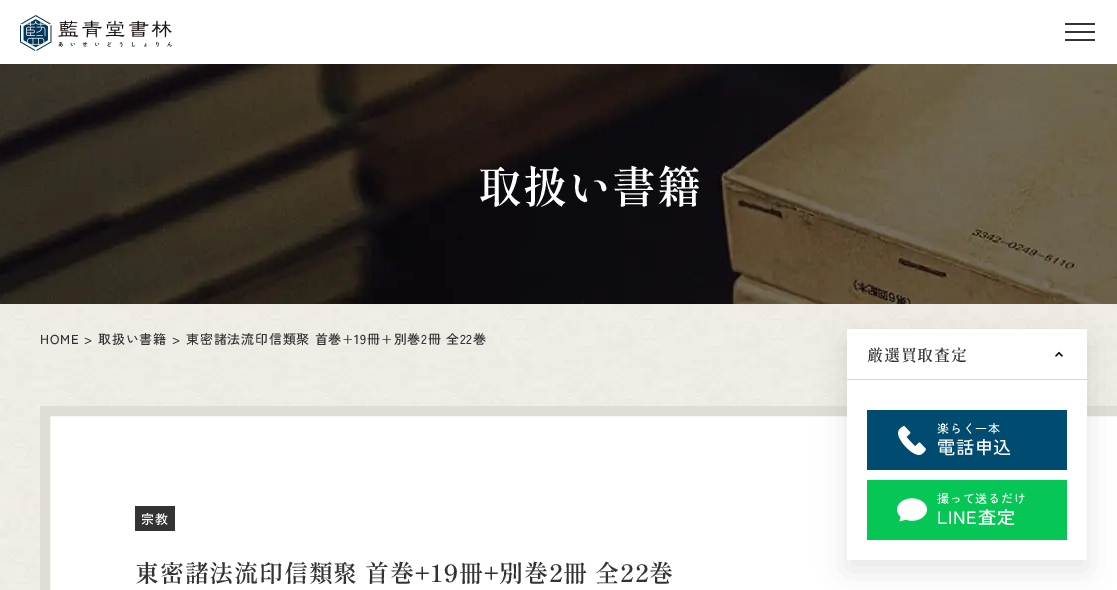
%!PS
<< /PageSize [1117 590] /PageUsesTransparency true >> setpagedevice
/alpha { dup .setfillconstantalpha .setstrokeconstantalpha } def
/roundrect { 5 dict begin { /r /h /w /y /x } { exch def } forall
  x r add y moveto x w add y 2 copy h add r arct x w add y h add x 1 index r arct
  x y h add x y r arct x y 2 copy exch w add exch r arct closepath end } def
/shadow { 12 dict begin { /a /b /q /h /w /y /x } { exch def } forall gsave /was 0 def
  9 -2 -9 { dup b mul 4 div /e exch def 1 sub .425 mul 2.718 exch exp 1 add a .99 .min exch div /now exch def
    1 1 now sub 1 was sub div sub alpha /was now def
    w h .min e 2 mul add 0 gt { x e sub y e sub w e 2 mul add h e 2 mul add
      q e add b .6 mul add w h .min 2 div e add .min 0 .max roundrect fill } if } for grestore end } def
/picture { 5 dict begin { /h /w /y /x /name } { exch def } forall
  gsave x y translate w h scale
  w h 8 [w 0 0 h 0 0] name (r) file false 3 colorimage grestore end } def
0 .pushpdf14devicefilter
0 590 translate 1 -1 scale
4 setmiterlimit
1 setgray
0 0 1117 590 rectfill
(img1.rgb) 0 304 1117 286 picture
(img2.rgb) 20 15 152 36 picture
0.2 setgray
1065 23 30 2 rectfill
1065 31 30 2 rectfill
1065 39 30 2 rectfill
(img3.rgb) 0 64 1117 240 picture
/ShipporiMincho-SemiBold [44 0 0 -44 0 0] selectfont
1 setgray
478 203 moveto 0.8 0 (取扱い書籍) ashow
/ZenKakuGothicNew-Medium [13 0 0 -13 0 0] selectfont
0.2 setgray
40 344 moveto 0.8 0 (HOME) ashow
84 344 moveto 0.8 0 (>) ashow
98 344 moveto 0.8 0 (取扱い書籍) ashow
172 344 moveto 0.8 0 (>) ashow
186 344 moveto 0.8 0 (東密諸法流印信類聚 首巻+19冊+別巻2冊 全22巻) ashow
1 setgray
newpath 45 411 moveto 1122 411 lineto 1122 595 lineto 45 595 lineto closepath gsave fill grestore
0.875 0.867 0.831 setrgbcolor
10 setlinewidth
stroke
0.2 setgray
135 506 40 25 rectfill
1 setgray
141 524 moveto 0.8 0 (宗教) ashow
/ShipporiMincho-SemiBold [24 0 0 -24 0 0] selectfont
0.2 setgray
135 582 moveto 0.8 0 (東密諸法流印信類聚 首巻+19冊+別巻2冊 全22巻) ashow
0 setgray
847 339 240 231 0 15 0.1 shadow
1 setgray
847 329 240 231 rectfill
/ShipporiMincho-SemiBold [16 0 0 -16 0 0] selectfont
0.2 setgray
867 361 moveto 0.8 0 (厳選買取査定) ashow
(img4.rgb) 1055 351 8 6 picture
0.839 setgray
847 379 240 1 rectfill
0 0.298 0.443 setrgbcolor
867 410 200 60 rectfill
(img5.rgb) 898 426 28 29 picture
/ZenKakuGothicNew-Medium [12 0 0 -12 0 0] selectfont
1 setgray
937 433 moveto 0.8 0 (楽らく一本) ashow
/ZenKakuGothicNew-Medium [18 0 0 -18 0 0] selectfont
937 454 moveto 0.8 0 (電話申込) ashow
0.024 0.78 0.333 setrgbcolor
867 480 200 60 rectfill
(img6.rgb) 897 498 30 24 picture
/ZenKakuGothicNew-Medium [12 0 0 -12 0 0] selectfont
1 setgray
937 503 moveto 0.8 0 (撮って送るだけ) ashow
/ZenKakuGothicNew-Medium [18 0 0 -18 0 0] selectfont
937 524 moveto 0.8 0 (LINE査定) ashow
.poppdf14devicefilter showpage
